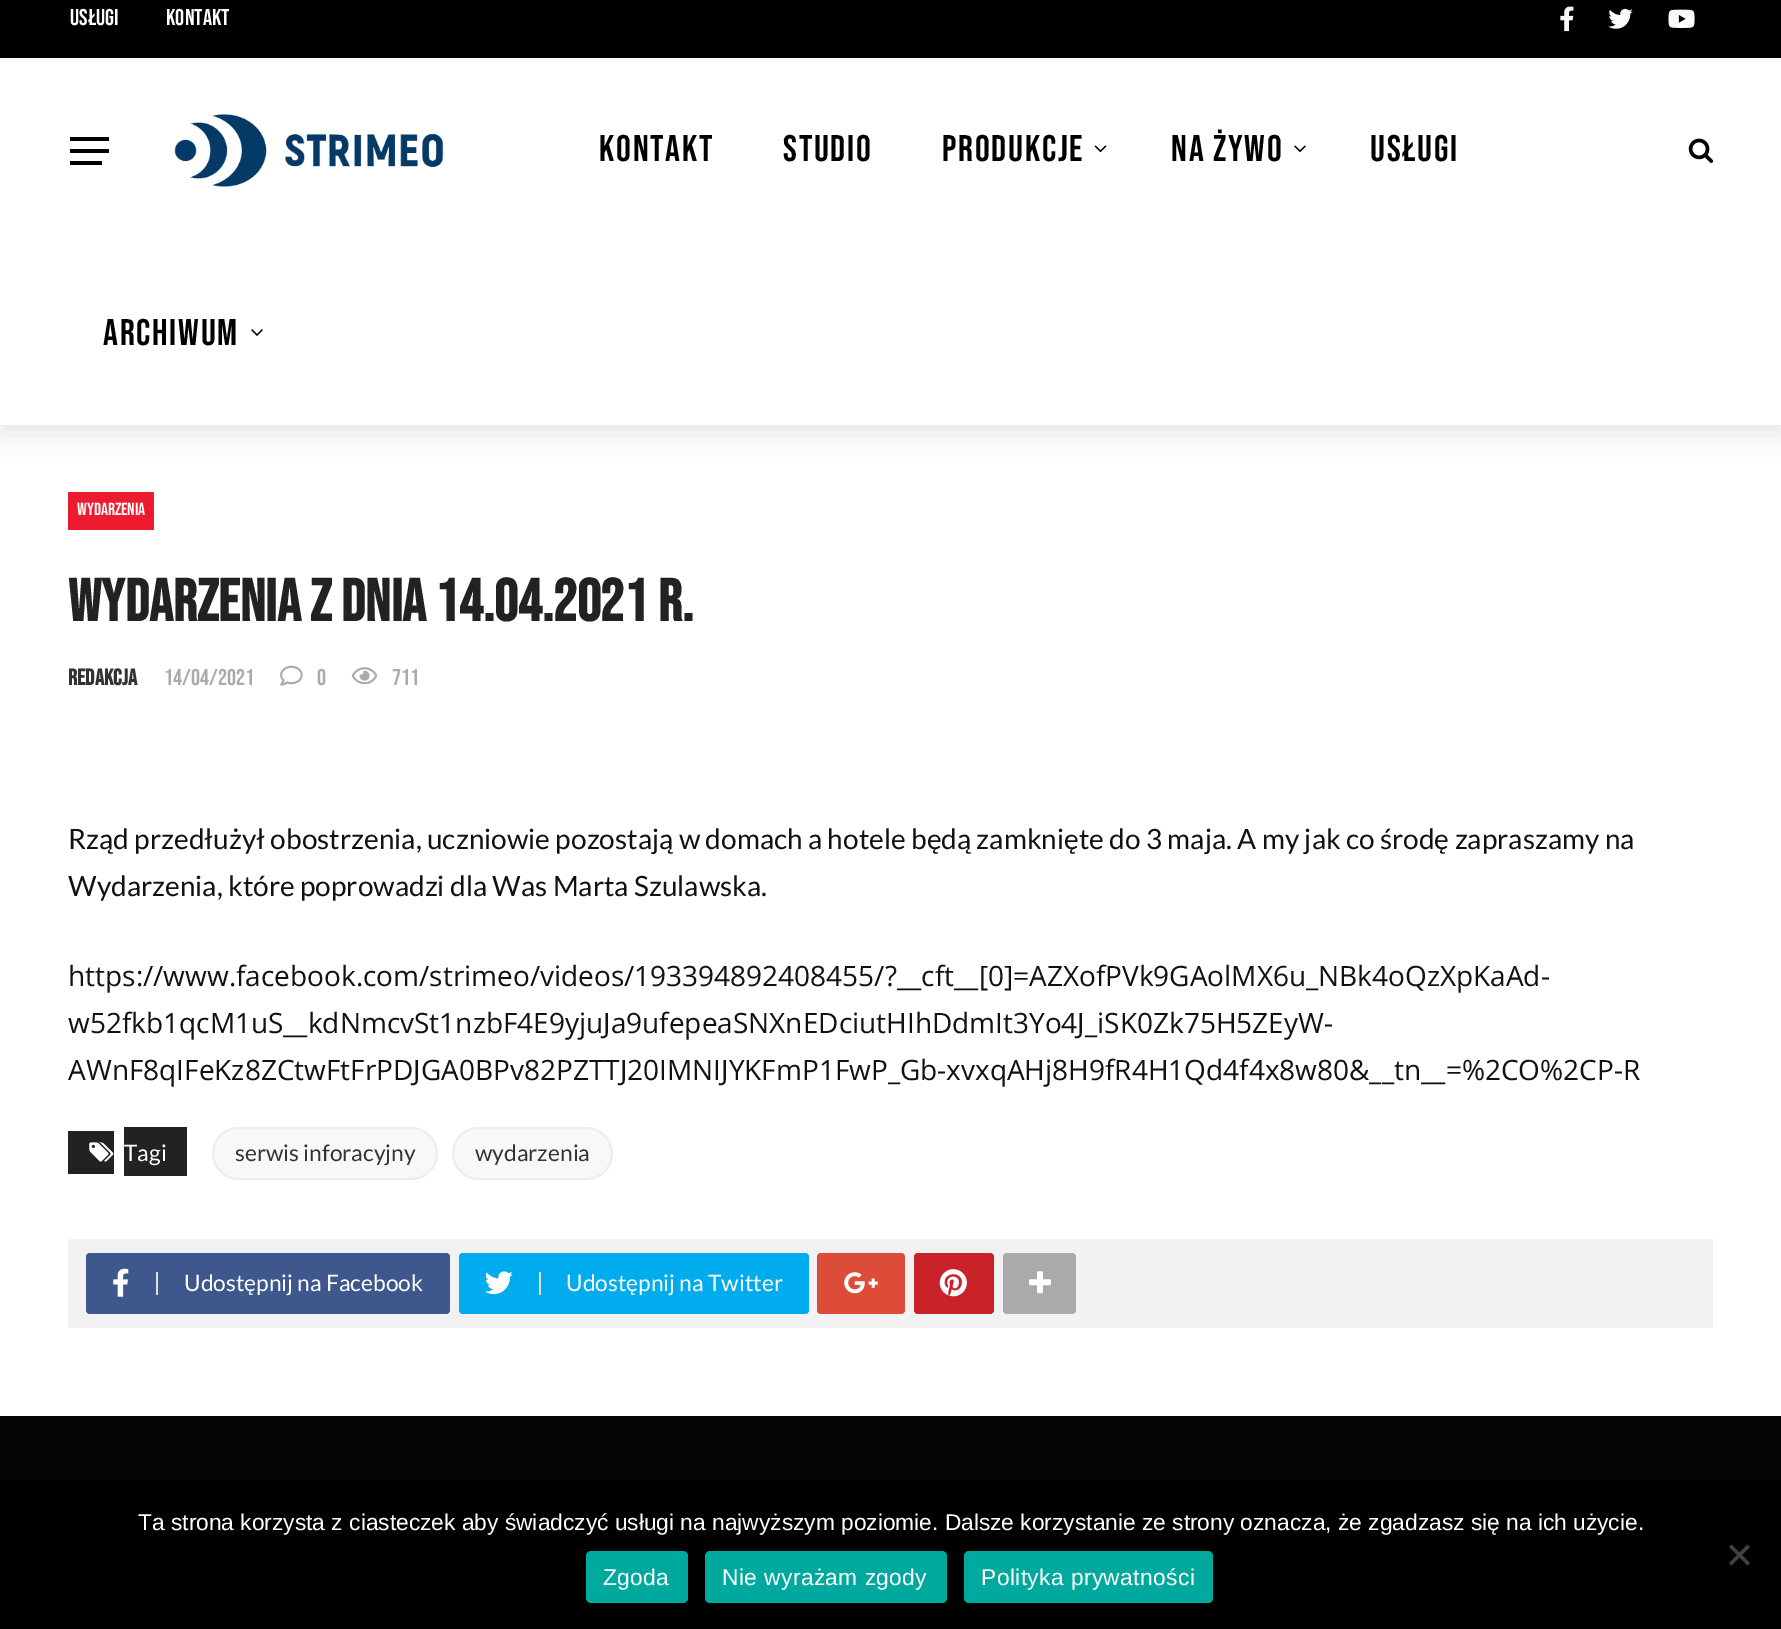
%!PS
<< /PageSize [1781 1629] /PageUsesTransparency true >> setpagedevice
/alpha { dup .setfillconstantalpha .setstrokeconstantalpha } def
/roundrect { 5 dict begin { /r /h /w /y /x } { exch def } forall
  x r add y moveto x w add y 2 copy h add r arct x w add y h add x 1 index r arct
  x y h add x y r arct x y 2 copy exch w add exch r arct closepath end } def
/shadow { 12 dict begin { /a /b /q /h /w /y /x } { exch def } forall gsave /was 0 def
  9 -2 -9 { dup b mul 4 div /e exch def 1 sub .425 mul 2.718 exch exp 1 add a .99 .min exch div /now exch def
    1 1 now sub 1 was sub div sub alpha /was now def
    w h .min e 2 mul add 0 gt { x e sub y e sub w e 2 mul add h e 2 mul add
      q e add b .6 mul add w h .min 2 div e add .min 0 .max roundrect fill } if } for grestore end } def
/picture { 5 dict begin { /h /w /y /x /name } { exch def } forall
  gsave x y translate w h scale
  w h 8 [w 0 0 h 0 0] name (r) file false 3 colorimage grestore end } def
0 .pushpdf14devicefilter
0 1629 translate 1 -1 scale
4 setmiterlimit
1 setgray
0 0 1781 1629 rectfill
0 setgray
0 0 1781 58 rectfill
(img1.rgb) 1560 6 14 26 picture
(img2.rgb) 1608 8 25 21 picture
(img3.rgb) 1668 9 27 19 picture
0 -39 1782 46 0 13 0.1 shadow
/BebasNeue-Regular [22.75 0 0 -22.75 0 0] selectfont
1 setgray
70 25 moveto (Usługi) show
166 25 moveto (Kontakt) show
gsave
newpath 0 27 moveto 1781 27 lineto 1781 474 lineto 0 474 lineto closepath 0 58 moveto 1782 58 lineto 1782 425 lineto 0 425 lineto closepath eoclip newpath
0 setgray
0 67 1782 367 0 13 0.1 shadow
grestore
(img4.rgb) 174 114 270 73 picture
0 setgray
70 137 39 4 rectfill
70 149 39 4 rectfill
70 161 32 4 rectfill
/BebasNeue-Regular [37 0 0 -37 0 0] selectfont
599 161 moveto 1.75 0 (KONTAKT) ashow
783 161 moveto 1.75 0 (STUDIO) ashow
942 161 moveto 1.75 0 (PRODUKCJE) ashow
(img5.rgb) 1094 145 13 8 picture
1171 161 moveto 1.75 0 (NA ŻYWO) ashow
(img6.rgb) 1294 145 12 8 picture
1370 161 moveto 1.75 0 (USŁUGI) ashow
103 345 moveto 1.75 0 (ARCHIWUM) ashow
(img7.rgb) 251 329 12 7 picture
(img8.rgb) 1688 138 26 25 picture
0.929 0.106 0.184 setrgbcolor
68 492 86 38 rectfill
/BebasNeue-Regular [17.5 0 0 -17.5 0 0] selectfont
1 setgray
77 515 moveto (WYDARZENIA) show
/BebasNeue-Bold [59.5 0 0 -59.5 0 0] selectfont
0.133 setgray
68 621 moveto (Wydarzenia z dnia 14.04.2021 r.) show
/BebasNeue-Bold [22.75 0 0 -22.75 0 0] selectfont
0.2 setgray
68 685 moveto (Redakcja) show
/BebasNeue-Regular [22.75 0 0 -22.75 0 0] selectfont
0.667 setgray
164 685 moveto (14/04/2021) show
(img9.rgb) 280 665 23 21 picture
317 685 moveto (0) show
(img10.rgb) 351 667 27 18 picture
392 685 moveto (711) show
/Lato-Regular [28 0 0 -28 0 0] selectfont
0.067 setgray
68 849 moveto (Rząd przedłużył obostrzenia, uczniowie pozostają w domach a hotele będą zamknięte do 3 maja. A my jak co środę zapraszamy na) show
68 896 moveto (Wydarzenia, które poprowadzi dla Was Marta Szulawska.) show
/OpenSans-Regular [28 0 0 -28 0 0] selectfont
68 986 moveto (https://www.facebook.com/strimeo/videos/193394892408455/?__cft__[0]=AZXofPVk9GAolMX6u_NBk4oQzXpKaAd-) show
68 1033 moveto (w52fkb1qcM1uS__kdNmcvSt1nzbF4E9yjuJa9ufepeaSNXnEDciutHIhDdmIt3Yo4J_iSK0Zk75H5ZEyW-) show
68 1080 moveto (AWnF8qIFeKz8ZCtwFtFrPDJGA0BPv82PZTTJ20IMNIJYKFmP1FwP_Gb-xvxqAHj8H9fR4H1Qd4f4x8w80&__tn__=%2CO%2CP-R) show
0.133 setgray
68 1131 46 43 rectfill
124 1127 63 49 rectfill
(img11.rgb) 89 1142 25 20 picture
/Lato-Regular [22.75 0 0 -22.75 0 0] selectfont
1 setgray
124 1161 moveto (Tagi) show
0.973 setgray
213 1128 224 51 25.5 roundrect gsave fill grestore
0.929 setgray
2 setlinewidth
stroke
0.2 setgray
235 1161 moveto (serwis inforacyjny) show
0.973 setgray
453 1128 159 51 25.5 roundrect gsave fill grestore
0.929 setgray
stroke
0.2 setgray
475 1161 moveto (wydarzenia) show
0.949 setgray
68 1239 1645 89 rectfill
0.243 0.341 0.549 setrgbcolor
86 1253 364 61 4 roundrect fill
(img12.rgb) 113 1268 16 29 picture
0.867 setgray
156 1272 2 23 rectfill
1 setgray
184 1291 moveto (Udostępnij na Facebook) show
0 0.675 0.933 setrgbcolor
459 1253 350 61 4 roundrect fill
(img13.rgb) 484 1271 29 24 picture
0.867 setgray
539 1272 2 23 rectfill
1 setgray
566 1291 moveto (Udostępnij na Twitter) show
0.867 0.294 0.224 setrgbcolor
817 1253 88 61 4 roundrect fill
(img14.rgb) 844 1272 34 22 picture
0.788 0.133 0.157 setrgbcolor
914 1253 80 61 4 roundrect fill
(img15.rgb) 939 1269 28 28 picture
0.667 setgray
1003 1253 73 61 4 roundrect fill
(img16.rgb) 1029 1271 22 23 picture
0.016 setgray
0 1416 1781 63 rectfill
0 setgray
0 1479 1781 150 rectfill
/LiberationSans-Regular [22.75 0 0 -22.75 0 0] selectfont
1 setgray
138 1530 moveto (Ta strona korzysta z ciasteczek aby świadczyć usługi na najwyższym poziomie. Dalsze korzystanie ze strony oznacza, że zgadzasz się na ich użycie.) show
0.251 setgray
newpath 1747.5 1544.5 moveto 1750 1547 lineto 1731.5 1565.5 lineto 1729 1563 lineto closepath fill
newpath 1729 1547 moveto 1731.5 1544.5 lineto 1750 1563 lineto 1747.5 1565.5 lineto closepath fill
0 0.663 0.616 setrgbcolor
586 1551 102 52 5 roundrect fill
1 setgray
603 1585 moveto 0.4 0 (Zgoda) ashow
0 0.663 0.616 setrgbcolor
705 1551 242 52 5 roundrect fill
1 setgray
722 1585 moveto 0.4 0 (Nie wyrażam zgody) ashow
0 0.663 0.616 setrgbcolor
964 1551 249 52 5 roundrect fill
1 setgray
981 1585 moveto 0.4 0 (Polityka prywatności) ashow
.poppdf14devicefilter showpage
